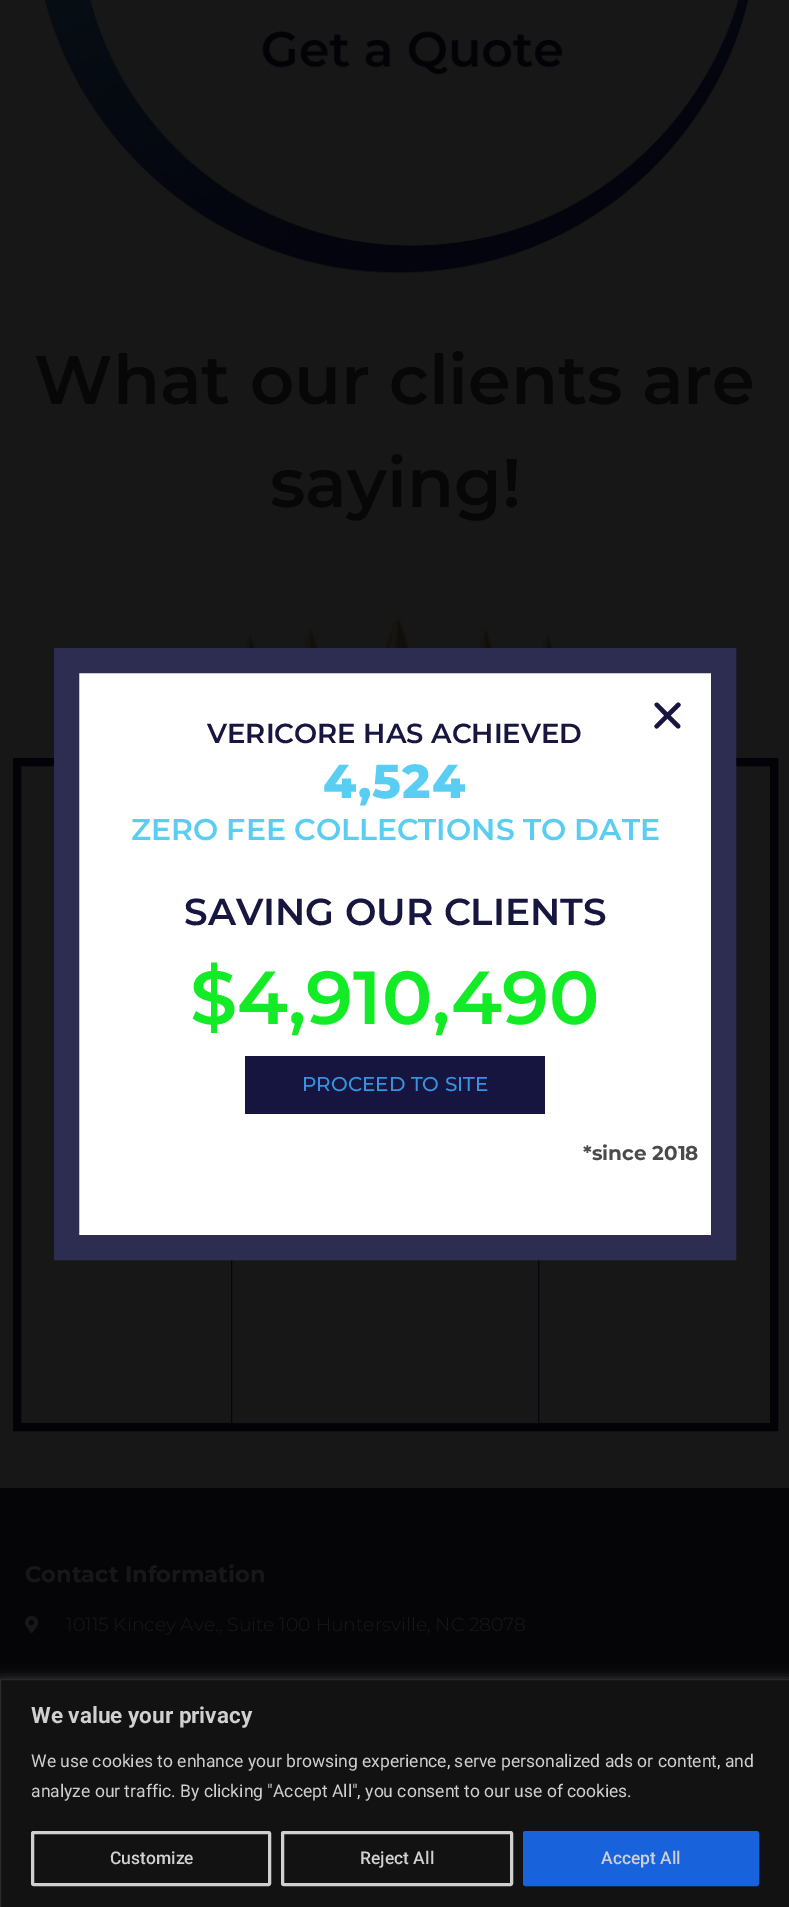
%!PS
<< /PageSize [789 1907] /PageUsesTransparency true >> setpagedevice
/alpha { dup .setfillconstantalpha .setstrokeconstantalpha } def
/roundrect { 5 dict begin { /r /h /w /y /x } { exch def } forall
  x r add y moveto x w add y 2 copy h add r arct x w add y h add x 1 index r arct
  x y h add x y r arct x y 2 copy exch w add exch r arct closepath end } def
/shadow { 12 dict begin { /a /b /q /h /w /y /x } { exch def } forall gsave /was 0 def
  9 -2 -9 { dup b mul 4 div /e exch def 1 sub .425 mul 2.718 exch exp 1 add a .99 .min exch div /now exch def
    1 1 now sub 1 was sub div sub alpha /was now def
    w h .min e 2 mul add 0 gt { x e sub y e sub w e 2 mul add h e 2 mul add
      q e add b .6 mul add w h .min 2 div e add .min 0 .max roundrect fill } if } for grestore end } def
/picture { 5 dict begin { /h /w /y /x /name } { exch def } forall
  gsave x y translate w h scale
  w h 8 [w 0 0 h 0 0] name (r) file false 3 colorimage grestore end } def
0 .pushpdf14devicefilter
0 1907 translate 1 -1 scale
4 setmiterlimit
0.09 setgray
0 0 789 1907 rectfill
(img1.rgb) 44 0 705 274 picture
/Montserrat-SemiBold [68.75 0 0 -68.75 0 0] selectfont
0.027 setgray
34 404 moveto (What our clients are) show
270 507 moveto (saying!) show
(img2.rgb) 222 616 356 32 picture
0.008 0.008 0.027 setrgbcolor
8 setlinewidth
17 762 757 665 rectstroke
0.016 0.02 0.051 setrgbcolor
1 setlinewidth
231.5 765.5 307 658 rectstroke
1 setgray
newpath 66.5 660.5 moveto 723.5 660.5 lineto 723.5 1247.5 lineto 66.5 1247.5 lineto closepath gsave fill grestore
0.176 0.176 0.322 setrgbcolor
25 setlinewidth
stroke
(img3.rgb) 654 702 27 27 picture
/Montserrat-SemiBold [27.5 0 0 -27.5 0 0] selectfont
0.086 0.086 0.247 setrgbcolor
207 743 moveto (VERICORE HAS ACHIEVED) show
/Montserrat-ExtraBold [47.5 0 0 -47.5 0 0] selectfont
0.349 0.804 0.949 setrgbcolor
323 798 moveto 1.25 0 (4,524) ashow
/Montserrat-SemiBold [30 0 0 -30 0 0] selectfont
131 840 moveto (ZERO FEE COLLECTIONS TO DATE) show
/Montserrat-SemiBold [37.5 0 0 -37.5 0 0] selectfont
0.086 0.086 0.247 setrgbcolor
184 925 moveto (SAVING OUR CLIENTS) show
/Montserrat-SemiBold [75 0 0 -75 0 0] selectfont
0.071 0.922 0.145 setrgbcolor
190 1024 moveto ($4,910,490) show
0.086 0.082 0.247 setrgbcolor
245 1056 300 58 rectfill
/Montserrat-Medium [20 0 0 -20 0 0] selectfont
0.216 0.573 0.886 setrgbcolor
302 1091 moveto (PROCEED TO SITE) show
/Montserrat-Bold [20 0 0 -20 0 0] selectfont
0.29 setgray
583 1160 moveto (*since 2018) show
0.02 0.02 0.031 setrgbcolor
0 1488 789 191 rectfill
/Montserrat-Bold [22.5 0 0 -22.5 0 0] selectfont
0.09 setgray
25 1582 moveto (Contact Information) show
(img4.rgb) 25 1615 14 19 picture
/Montserrat-Light [18.75 0 0 -18.75 0 0] selectfont
66 1631 moveto (10115 Kincey Ave., Suite 100 Huntersville, NC 28078) show
0.675 0.671 0.671 setrgbcolor
0 1678 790 228 0 6 0.3 shadow
0.071 setgray
newpath 0.5 1679.5 moveto 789.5 1679.5 lineto 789.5 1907.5 lineto 0.5 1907.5 lineto closepath gsave fill grestore
0.165 setgray
1 setlinewidth
stroke
/Roboto-Bold [22.5 0 0 -22.5 0 0] selectfont
0.816 setgray
31 1723 moveto (We value your privacy) show
/Roboto-Regular [17.5 0 0 -17.5 0 0] selectfont
31 1767 moveto (We use cookies to enhance your browsing experience, serve personalized ads or content, and) show
31 1797 moveto (analyze our traffic. By clicking "Accept All", you consent to our use of cookies.) show
3 setlinewidth
32.5 1832.5 237 52 1 roundrect stroke
/Roboto-Medium [17.5 0 0 -17.5 0 0] selectfont
110 1864 moveto (Customize) show
282.5 1832.5 229 52 1 roundrect stroke
360 1864 moveto (Reject All) show
0.094 0.388 0.863 setrgbcolor
524.5 1832.5 233 52 1 roundrect gsave fill grestore
stroke
0.816 setgray
601 1864 moveto (Accept All) show
.poppdf14devicefilter showpage
